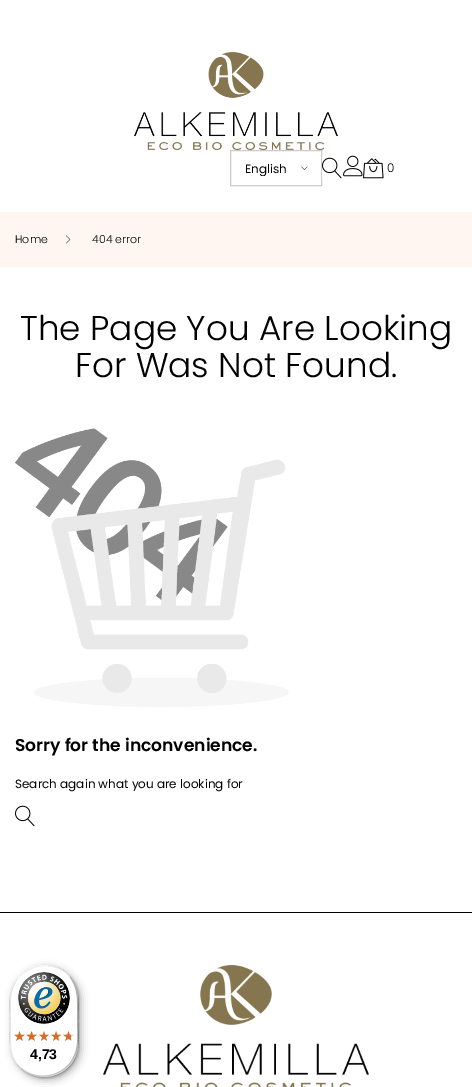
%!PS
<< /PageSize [472 1087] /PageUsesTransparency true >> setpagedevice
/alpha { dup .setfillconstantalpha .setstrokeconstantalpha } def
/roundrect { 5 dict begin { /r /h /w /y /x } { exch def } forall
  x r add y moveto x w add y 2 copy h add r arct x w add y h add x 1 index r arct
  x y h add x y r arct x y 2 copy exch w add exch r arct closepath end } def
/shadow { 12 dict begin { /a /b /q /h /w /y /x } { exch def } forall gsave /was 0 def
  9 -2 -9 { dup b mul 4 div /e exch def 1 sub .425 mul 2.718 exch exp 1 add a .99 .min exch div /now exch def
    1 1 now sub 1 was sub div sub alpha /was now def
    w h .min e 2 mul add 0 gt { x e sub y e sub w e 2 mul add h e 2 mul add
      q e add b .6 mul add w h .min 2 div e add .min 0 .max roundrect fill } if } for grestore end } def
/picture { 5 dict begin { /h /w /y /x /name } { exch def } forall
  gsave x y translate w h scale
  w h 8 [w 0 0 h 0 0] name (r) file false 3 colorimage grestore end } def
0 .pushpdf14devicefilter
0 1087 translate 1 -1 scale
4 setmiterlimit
1 setgray
0 0 472 1087 rectfill
(img1.rgb) 134 52 204 98 picture
(img2.rgb) 301 166 7 4 picture
0.8 setgray
230.5 150.5 91 35 rectstroke
gsave
245 162 51 14 rectclip
/Poppins-Regular [12 0 0 -12 0 0] selectfont
0 setgray
245 173 moveto (English) show
grestore
(img3.rgb) 322 157 20 22 picture
(img4.rgb) 343 155 20 22 picture
(img5.rgb) 363 158 21 21 picture
/Poppins-Light [12 0 0 -12 0 0] selectfont
0 setgray
387 172 moveto (0) show
1 0.965 0.945 setrgbcolor
0 212 472 55 rectfill
/Poppins-Light [11 0 0 -11 0 0] selectfont
0 setgray
15 243 moveto (Home) show
(img6.rgb) 66 235 5 9 picture
92 243 moveto (404 error) show
/Poppins-Light [34.25 0 0 -34.25 0 0] selectfont
20 340 moveto (The Page You Are Looking) show
75 377 moveto (For Was Not Found.) show
(img7.rgb) 15 428 274 279 picture
/Poppins-SemiBold [17.1 0 0 -17.1 0 0] selectfont
15 751 moveto (Sorry for the inconvenience.) show
/Poppins-Regular [12 0 0 -12 0 0] selectfont
15 788 moveto (Search again what you are looking for) show
(img3.rgb) 15 805 20 22 picture
0 912 472 1 rectfill
(img8.rgb) 103 965 266 122 picture
13 968 68 112 34 4 0.15 shadow
11 966 68 112 34 1 0.15 shadow
0.898 setgray
newpath 45 966 moveto 53 966 61 969 67 974 curveto 50 959 22 965 13 986 curveto 8 996 10 1010 10 1021 curveto 10 1036 7 1053 19 1066 curveto 14 1060 11 1052 11 1044 curveto 11 1000 lineto 11 981 26 966 45 966 curveto closepath fill
0.2 alpha
0 setgray
newpath 21 1068 moveto 38 1083 66 1077 75 1056 curveto 80 1046 78 1032 78 1021 curveto 78 1006 81 989 69 976 curveto 79 989 77 1005 77 1020 curveto 77 1031 79 1045 74 1055 curveto 66 1076 38 1082 21 1068 curveto closepath fill
0.196 setgray
newpath 17 1064 moveto 24 1072 33 1077 44 1077 curveto 63 1077 78 1062 78 1043 curveto 78 999 lineto 78 988 73 979 65 972 curveto 72 979 77 988 77 998 curveto 77 1042 lineto 77 1061 62 1076 43 1076 curveto 33 1076 24 1071 17 1064 curveto closepath fill
0.3 alpha
1 setgray
newpath 10 1042 moveto 10 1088 78 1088 78 1042 curveto 78 1061 62 1076 44 1076 curveto 25 1076 10 1061 10 1042 curveto closepath fill
1 alpha
0 setgray
13 968 68 112 34 4 0.15 shadow
11 966 68 112 34 1 0.15 shadow
1 setgray
10 965 68 112 34 roundrect fill
0.1 alpha
0 setgray
newpath 45 966 moveto 53 966 61 969 67 974 curveto 50 959 22 965 13 986 curveto 8 996 10 1010 10 1021 curveto 10 1036 7 1053 19 1066 curveto 14 1060 11 1052 11 1044 curveto 11 1000 lineto 11 981 26 966 45 966 curveto closepath fill
0.2 alpha
newpath 21 1068 moveto 38 1083 66 1077 75 1056 curveto 80 1046 78 1032 78 1021 curveto 78 1006 81 989 69 976 curveto 79 989 77 1005 77 1020 curveto 77 1031 79 1045 74 1055 curveto 66 1076 38 1082 21 1068 curveto closepath fill
0.196 setgray
newpath 17 1064 moveto 24 1072 33 1077 44 1077 curveto 63 1077 78 1062 78 1043 curveto 78 999 lineto 78 988 73 979 65 972 curveto 72 979 77 988 77 998 curveto 77 1042 lineto 77 1061 62 1076 43 1076 curveto 33 1076 24 1071 17 1064 curveto closepath fill
0.3 alpha
1 setgray
newpath 10 1042 moveto 10 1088 78 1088 78 1042 curveto 78 1061 62 1076 44 1076 curveto 25 1076 10 1061 10 1042 curveto closepath fill
1 alpha
(img9.rgb) 18 972 52 52 picture
(img10.rgb) 14 1031 11 10 picture
(img11.rgb) 27 1031 10 10 picture
(img12.rgb) 39 1031 10 10 picture
(img13.rgb) 51 1031 11 10 picture
(img13.rgb) 63 1031 11 10 picture
(img14.rgb) 14 1031 11 10 picture
(img15.rgb) 26 1031 11 10 picture
(img16.rgb) 39 1031 10 10 picture
(img17.rgb) 51 1031 10 10 picture
(img18.rgb) 63 1031 8 10 picture
/LiberationSans-Bold [14 0 0 -14 0 0] selectfont
0 setgray
30 1059 moveto (4,73) show
.poppdf14devicefilter showpage
